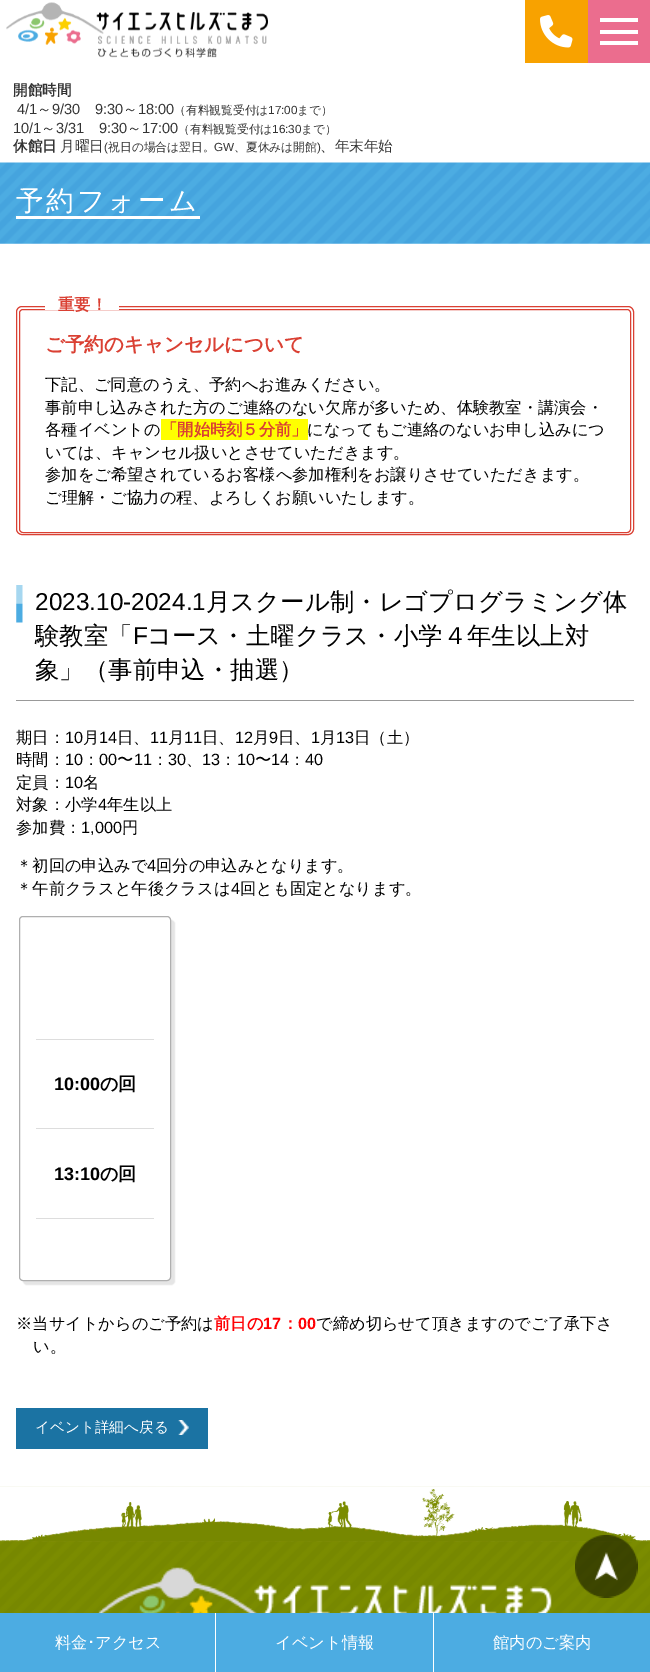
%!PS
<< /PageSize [650 1672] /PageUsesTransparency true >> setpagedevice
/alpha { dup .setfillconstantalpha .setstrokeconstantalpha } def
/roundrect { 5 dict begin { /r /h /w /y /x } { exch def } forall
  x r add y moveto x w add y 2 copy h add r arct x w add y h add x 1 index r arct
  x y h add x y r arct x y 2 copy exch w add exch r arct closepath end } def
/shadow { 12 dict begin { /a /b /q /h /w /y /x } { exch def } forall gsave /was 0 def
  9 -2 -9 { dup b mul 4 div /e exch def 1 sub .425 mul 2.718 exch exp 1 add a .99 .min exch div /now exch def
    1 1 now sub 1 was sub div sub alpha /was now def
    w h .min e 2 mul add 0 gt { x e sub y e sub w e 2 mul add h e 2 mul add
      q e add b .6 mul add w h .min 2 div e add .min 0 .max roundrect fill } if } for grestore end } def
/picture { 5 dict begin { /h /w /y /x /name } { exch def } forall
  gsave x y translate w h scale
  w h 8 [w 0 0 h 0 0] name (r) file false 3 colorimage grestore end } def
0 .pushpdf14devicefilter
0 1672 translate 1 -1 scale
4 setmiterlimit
1 setgray
0 0 650 1672 rectfill
(img1.rgb) 6 2 262 56 picture
0.973 0.635 0 setrgbcolor
525 0 63 63 rectfill
(img2.rgb) 540 15 33 33 picture
0.922 0.427 0.557 setrgbcolor
588 0 62 63 rectfill
1 setgray
600 18 38 4 rectfill
600 30 38 4 rectfill
600 41 38 4 rectfill
/WenQuanYiZenHei-Bold [14.6 0 0 -14.6 0 0] selectfont
0.2 setgray
13 95 moveto (開館時間) show
/LiberationSans-Regular [14.6 0 0 -14.6 0 0] selectfont
17 114 moveto (4/1) show
/WenQuanYiZenHei-Medium [14.6 0 0 -14.6 0 0] selectfont
37 114 moveto (～) show
/LiberationSans-Regular [14.6 0 0 -14.6 0 0] selectfont
52 114 moveto (9/30) show
95 114 moveto (9:30) show
/WenQuanYiZenHei-Medium [14.6 0 0 -14.6 0 0] selectfont
123 114 moveto (～) show
/LiberationSans-Regular [14.6 0 0 -14.6 0 0] selectfont
138 114 moveto (18:00) show
/WenQuanYiZenHei-Medium [11.75 0 0 -11.75 0 0] selectfont
174 114 moveto (（有料観覧受付は) show
/LiberationSans-Regular [11.75 0 0 -11.75 0 0] selectfont
268 114 moveto (17:00) show
/WenQuanYiZenHei-Medium [11.75 0 0 -11.75 0 0] selectfont
297 114 moveto (まで）) show
/LiberationSans-Regular [14.6 0 0 -14.6 0 0] selectfont
13 133 moveto (10/1) show
/WenQuanYiZenHei-Medium [14.6 0 0 -14.6 0 0] selectfont
41 133 moveto (～) show
/LiberationSans-Regular [14.6 0 0 -14.6 0 0] selectfont
56 133 moveto (3/31) show
99 133 moveto (9:30) show
/WenQuanYiZenHei-Medium [14.6 0 0 -14.6 0 0] selectfont
127 133 moveto (～) show
/LiberationSans-Regular [14.6 0 0 -14.6 0 0] selectfont
142 133 moveto (17:00) show
/WenQuanYiZenHei-Medium [11.75 0 0 -11.75 0 0] selectfont
178 133 moveto (（有料観覧受付は) show
/LiberationSans-Regular [11.75 0 0 -11.75 0 0] selectfont
272 133 moveto (16:30) show
/WenQuanYiZenHei-Medium [11.75 0 0 -11.75 0 0] selectfont
301 133 moveto (まで）) show
/WenQuanYiZenHei-Bold [14.6 0 0 -14.6 0 0] selectfont
13 151 moveto (休館日) show
/WenQuanYiZenHei-Medium [14.6 0 0 -14.6 0 0] selectfont
60 151 moveto (月曜日) show
/LiberationSans-Regular [11.75 0 0 -11.75 0 0] selectfont
104 151 moveto (\() show
/WenQuanYiZenHei-Medium [11.75 0 0 -11.75 0 0] selectfont
108 151 moveto (祝日の場合は翌日。) show
/LiberationSans-Regular [11.75 0 0 -11.75 0 0] selectfont
214 151 moveto (GW) show
/WenQuanYiZenHei-Medium [11.75 0 0 -11.75 0 0] selectfont
234 151 moveto (、夏休みは開館) show
/LiberationSans-Regular [11.75 0 0 -11.75 0 0] selectfont
317 151 moveto (\)) show
/WenQuanYiZenHei-Medium [14.6 0 0 -14.6 0 0] selectfont
320 151 moveto (、年末年始) show
(img3.rgb) 0 162 650 82 picture
/WenQuanYiZenHei-Medium [27.5 0 0 -27.5 0 0] selectfont
1 setgray
16 210 moveto 2.75 0 (予約フォーム) ashow
16 216 184 3 rectfill
0.855 0.251 0.2 setrgbcolor
16.5 306.5 617 228 5.5 roundrect stroke
19.5 309.5 611 223 3.5 roundrect stroke
1 setgray
45 306 74 4 rectfill
/WenQuanYiZenHei-Bold [16.25 0 0 -16.25 0 0] selectfont
0.855 0.251 0.2 setrgbcolor
58 310 moveto (重要！) show
/WenQuanYiZenHei-Bold [19.5 0 0 -19.5 0 0] selectfont
45 351 moveto (ご予約のキャンセルについて) show
/WenQuanYiZenHei-Medium [16.25 0 0 -16.25 0 0] selectfont
0 setgray
45 390 moveto (下記、ご同意のうえ、予約へお進みください。) show
45 413 moveto (事前申し込みされた方のご連絡のない欠席が多いため、体験教室・講演会・) show
45 435 moveto (各種イベントの) show
1 1 0 setrgbcolor
161 419 147 21 rectfill
/WenQuanYiZenHei-Bold [16.25 0 0 -16.25 0 0] selectfont
0.855 0.251 0.2 setrgbcolor
161 435 moveto (「開始時刻５分前」) show
/WenQuanYiZenHei-Medium [16.25 0 0 -16.25 0 0] selectfont
0 setgray
307 435 moveto (になってもご連絡のないお申し込みにつ) show
45 458 moveto (いては、キャンセル扱いとさせていただきます。) show
45 480 moveto (参加をご希望されているお客様へ参加権利をお譲りさせていただきます。) show
45 503 moveto (ご理解・ご協力の程、よろしくお願いいたします。) show
(img4.rgb) 16 585 7 38 picture
0.6 setgray
16 700 618 1 rectfill
/LiberationSans-Regular [24.4 0 0 -24.4 0 0] selectfont
0 setgray
35 610 moveto (2023.10-2024.1) show
/WenQuanYiZenHei-Medium [24.4 0 0 -24.4 0 0] selectfont
206 610 moveto (月スクール制・レゴプログラミング体) show
35 644 moveto (験教室「) show
/LiberationSans-Regular [24.4 0 0 -24.4 0 0] selectfont
133 644 moveto (F) show
/WenQuanYiZenHei-Medium [24.4 0 0 -24.4 0 0] selectfont
147 644 moveto (コース・土曜クラス・小学４年生以上対) show
35 678 moveto (象」（事前申込・抽選）) show
/WenQuanYiZenHei-Medium [16.25 0 0 -16.25 0 0] selectfont
16 743 moveto (期日：) show
/LiberationSans-Regular [16.25 0 0 -16.25 0 0] selectfont
65 743 moveto (10) show
/WenQuanYiZenHei-Medium [16.25 0 0 -16.25 0 0] selectfont
83 743 moveto (月) show
/LiberationSans-Regular [16.25 0 0 -16.25 0 0] selectfont
99 743 moveto (14) show
/WenQuanYiZenHei-Medium [16.25 0 0 -16.25 0 0] selectfont
117 743 moveto (日、) show
/LiberationSans-Regular [16.25 0 0 -16.25 0 0] selectfont
150 743 moveto (11) show
/WenQuanYiZenHei-Medium [16.25 0 0 -16.25 0 0] selectfont
168 743 moveto (月) show
/LiberationSans-Regular [16.25 0 0 -16.25 0 0] selectfont
184 743 moveto (11) show
/WenQuanYiZenHei-Medium [16.25 0 0 -16.25 0 0] selectfont
202 743 moveto (日、) show
/LiberationSans-Regular [16.25 0 0 -16.25 0 0] selectfont
235 743 moveto (12) show
/WenQuanYiZenHei-Medium [16.25 0 0 -16.25 0 0] selectfont
253 743 moveto (月) show
/LiberationSans-Regular [16.25 0 0 -16.25 0 0] selectfont
269 743 moveto (9) show
/WenQuanYiZenHei-Medium [16.25 0 0 -16.25 0 0] selectfont
278 743 moveto (日、) show
/LiberationSans-Regular [16.25 0 0 -16.25 0 0] selectfont
311 743 moveto (1) show
/WenQuanYiZenHei-Medium [16.25 0 0 -16.25 0 0] selectfont
320 743 moveto (月) show
/LiberationSans-Regular [16.25 0 0 -16.25 0 0] selectfont
336 743 moveto (13) show
/WenQuanYiZenHei-Medium [16.25 0 0 -16.25 0 0] selectfont
354 743 moveto (日（土）) show
16 765 moveto (時間：) show
/LiberationSans-Regular [16.25 0 0 -16.25 0 0] selectfont
65 765 moveto (10) show
/WenQuanYiZenHei-Medium [16.25 0 0 -16.25 0 0] selectfont
83 765 moveto (：) show
/LiberationSans-Regular [16.25 0 0 -16.25 0 0] selectfont
99 765 moveto (00) show
/WenQuanYiZenHei-Medium [16.25 0 0 -16.25 0 0] selectfont
117 765 moveto (〜) show
/LiberationSans-Regular [16.25 0 0 -16.25 0 0] selectfont
134 765 moveto (11) show
/WenQuanYiZenHei-Medium [16.25 0 0 -16.25 0 0] selectfont
152 765 moveto (：) show
/LiberationSans-Regular [16.25 0 0 -16.25 0 0] selectfont
168 765 moveto (30) show
/WenQuanYiZenHei-Medium [16.25 0 0 -16.25 0 0] selectfont
186 765 moveto (、) show
/LiberationSans-Regular [16.25 0 0 -16.25 0 0] selectfont
202 765 moveto (13) show
/WenQuanYiZenHei-Medium [16.25 0 0 -16.25 0 0] selectfont
220 765 moveto (：) show
/LiberationSans-Regular [16.25 0 0 -16.25 0 0] selectfont
237 765 moveto (10) show
/WenQuanYiZenHei-Medium [16.25 0 0 -16.25 0 0] selectfont
255 765 moveto (〜) show
/LiberationSans-Regular [16.25 0 0 -16.25 0 0] selectfont
271 765 moveto (14) show
/WenQuanYiZenHei-Medium [16.25 0 0 -16.25 0 0] selectfont
289 765 moveto (：) show
/LiberationSans-Regular [16.25 0 0 -16.25 0 0] selectfont
305 765 moveto (40) show
/WenQuanYiZenHei-Medium [16.25 0 0 -16.25 0 0] selectfont
16 788 moveto (定員：) show
/LiberationSans-Regular [16.25 0 0 -16.25 0 0] selectfont
65 788 moveto (10) show
/WenQuanYiZenHei-Medium [16.25 0 0 -16.25 0 0] selectfont
83 788 moveto (名) show
16 810 moveto (対象：小学) show
/LiberationSans-Regular [16.25 0 0 -16.25 0 0] selectfont
98 810 moveto (4) show
/WenQuanYiZenHei-Medium [16.25 0 0 -16.25 0 0] selectfont
107 810 moveto (年生以上) show
16 833 moveto (参加費：) show
/LiberationSans-Regular [16.25 0 0 -16.25 0 0] selectfont
81 833 moveto (1,000) show
/WenQuanYiZenHei-Medium [16.25 0 0 -16.25 0 0] selectfont
122 833 moveto (円) show
16 871 moveto (＊初回の申込みで) show
/LiberationSans-Regular [16.25 0 0 -16.25 0 0] selectfont
147 871 moveto (4) show
/WenQuanYiZenHei-Medium [16.25 0 0 -16.25 0 0] selectfont
156 871 moveto (回分の申込みとなります。) show
16 894 moveto (＊午前クラスと午後クラスは) show
/LiberationSans-Regular [16.25 0 0 -16.25 0 0] selectfont
231 894 moveto (4) show
/WenQuanYiZenHei-Medium [16.25 0 0 -16.25 0 0] selectfont
240 894 moveto (回とも固定となります。) show
gsave
newpath 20 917 moveto 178 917 lineto 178 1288 lineto 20 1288 lineto closepath 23 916 moveto 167 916 lineto 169 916 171 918 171 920 curveto 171 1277 lineto 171 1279 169 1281 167 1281 curveto 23 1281 lineto 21 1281 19 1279 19 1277 curveto 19 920 lineto 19 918 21 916 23 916 curveto closepath eoclip newpath
23 920 152 365 4 0.5 0.1 shadow
grestore
0.686 setgray
19.5 916.5 151 364 3.5 roundrect stroke
0.867 setgray
36 1039 118 1 rectfill
36 1128 118 1 rectfill
/LiberationSans-Bold [18 0 0 -18 0 0] selectfont
0 setgray
54 1090 moveto (10:00) show
/WenQuanYiZenHei-Bold [18 0 0 -18 0 0] selectfont
100 1090 moveto (の回) show
0.867 setgray
36 1218 118 1 rectfill
/LiberationSans-Bold [18 0 0 -18 0 0] selectfont
0 setgray
54 1180 moveto (13:10) show
/WenQuanYiZenHei-Bold [18 0 0 -18 0 0] selectfont
100 1180 moveto (の回) show
/WenQuanYiZenHei-Medium [16.25 0 0 -16.25 0 0] selectfont
16 1329 moveto (※当サイトからのご予約は) show
/WenQuanYiZenHei-Bold [16.25 0 0 -16.25 0 0] selectfont
1 0 0.016 setrgbcolor
214 1329 moveto (前日の) show
/LiberationSans-Bold [16.25 0 0 -16.25 0 0] selectfont
263 1329 moveto (17) show
/WenQuanYiZenHei-Bold [16.25 0 0 -16.25 0 0] selectfont
282 1329 moveto (：) show
/LiberationSans-Bold [16.25 0 0 -16.25 0 0] selectfont
298 1329 moveto (00) show
/WenQuanYiZenHei-Medium [16.25 0 0 -16.25 0 0] selectfont
0 setgray
316 1329 moveto (で締め切らせて頂きますのでご了承下さ) show
33 1352 moveto (い。) show
0.106 0.451 0.639 setrgbcolor
16 1408 192 41 rectfill
/WenQuanYiZenHei-Medium [14.6 0 0 -14.6 0 0] selectfont
1 setgray
35 1432 moveto (イベント詳細へ戻る) show
(img5.rgb) 178 1420 11 15 picture
(img6.rgb) 0 1486 650 127 picture
(img7.rgb) 0 1486 650 56 picture
(img8.rgb) 0 1486 650 56 picture
(img9.rgb) 98 1567 454 46 picture
(img10.rgb) 575 1535 63 63 picture
0.298 0.675 0.886 setrgbcolor
0 1613 215 59 rectfill
/WenQuanYiZenHei-Medium [16.25 0 0 -16.25 0 0] selectfont
1 setgray
55 1648 moveto (料金) show
/IPAGothic-Regular [16.25 0 0 -16.25 0 0] selectfont
87 1648 moveto (･) show
/WenQuanYiZenHei-Medium [16.25 0 0 -16.25 0 0] selectfont
95 1648 moveto (アクセス) show
0.298 0.675 0.886 setrgbcolor
216 1613 217 59 rectfill
1 setgray
275 1648 moveto (イベント情報) show
0.298 0.675 0.886 setrgbcolor
434 1613 216 59 rectfill
1 setgray
493 1648 moveto (館内のご案内) show
.poppdf14devicefilter showpage
